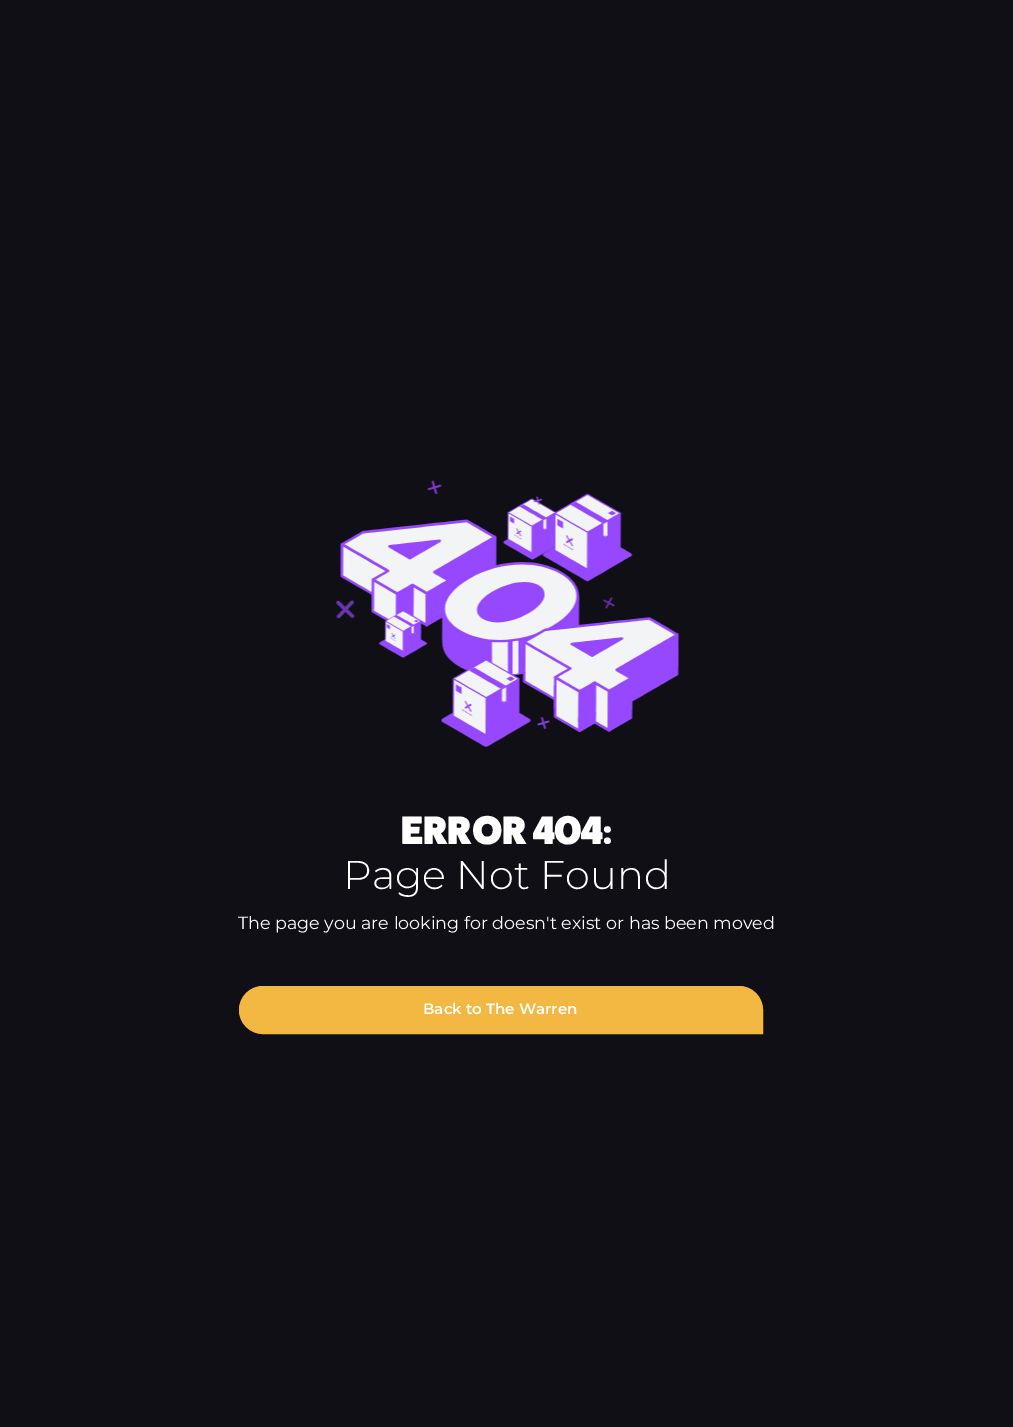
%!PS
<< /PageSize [1013 1427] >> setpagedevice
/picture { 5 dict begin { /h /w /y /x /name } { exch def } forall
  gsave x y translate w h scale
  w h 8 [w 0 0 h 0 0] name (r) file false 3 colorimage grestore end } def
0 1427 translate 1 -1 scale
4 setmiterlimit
0.067 0.059 0.086 setrgbcolor
0 0 1013 1427 rectfill
(img1.rgb) 335 480 344 267 picture
/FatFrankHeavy-Black [40 0 0 -40 0 0] selectfont
1 setgray
401 844 moveto (ERROR 404:) show
/Montserrat-Light [40 0 0 -40 0 0] selectfont
343 889 moveto (Page Not Found) show
/Montserrat-Regular [17.5 0 0 -17.5 0 0] selectfont
238 929 moveto (The page you are looking for doesn't exist or has been moved) show
0.953 0.722 0.255 setrgbcolor
newpath 263 986.5 moveto 739 986.5 lineto 752 986.5 762.5 997 762.5 1010 curveto 762.5 1033.5 lineto 263 1033.5 lineto 250 1033.5 239.5 1023 239.5 1010 curveto 239.5 997 250 986.5 263 986.5 curveto closepath gsave fill grestore
stroke
/Montserrat-SemiBold [15 0 0 -15 0 0] selectfont
1 setgray
423 1014 moveto (Back to The Warren) show
showpage
